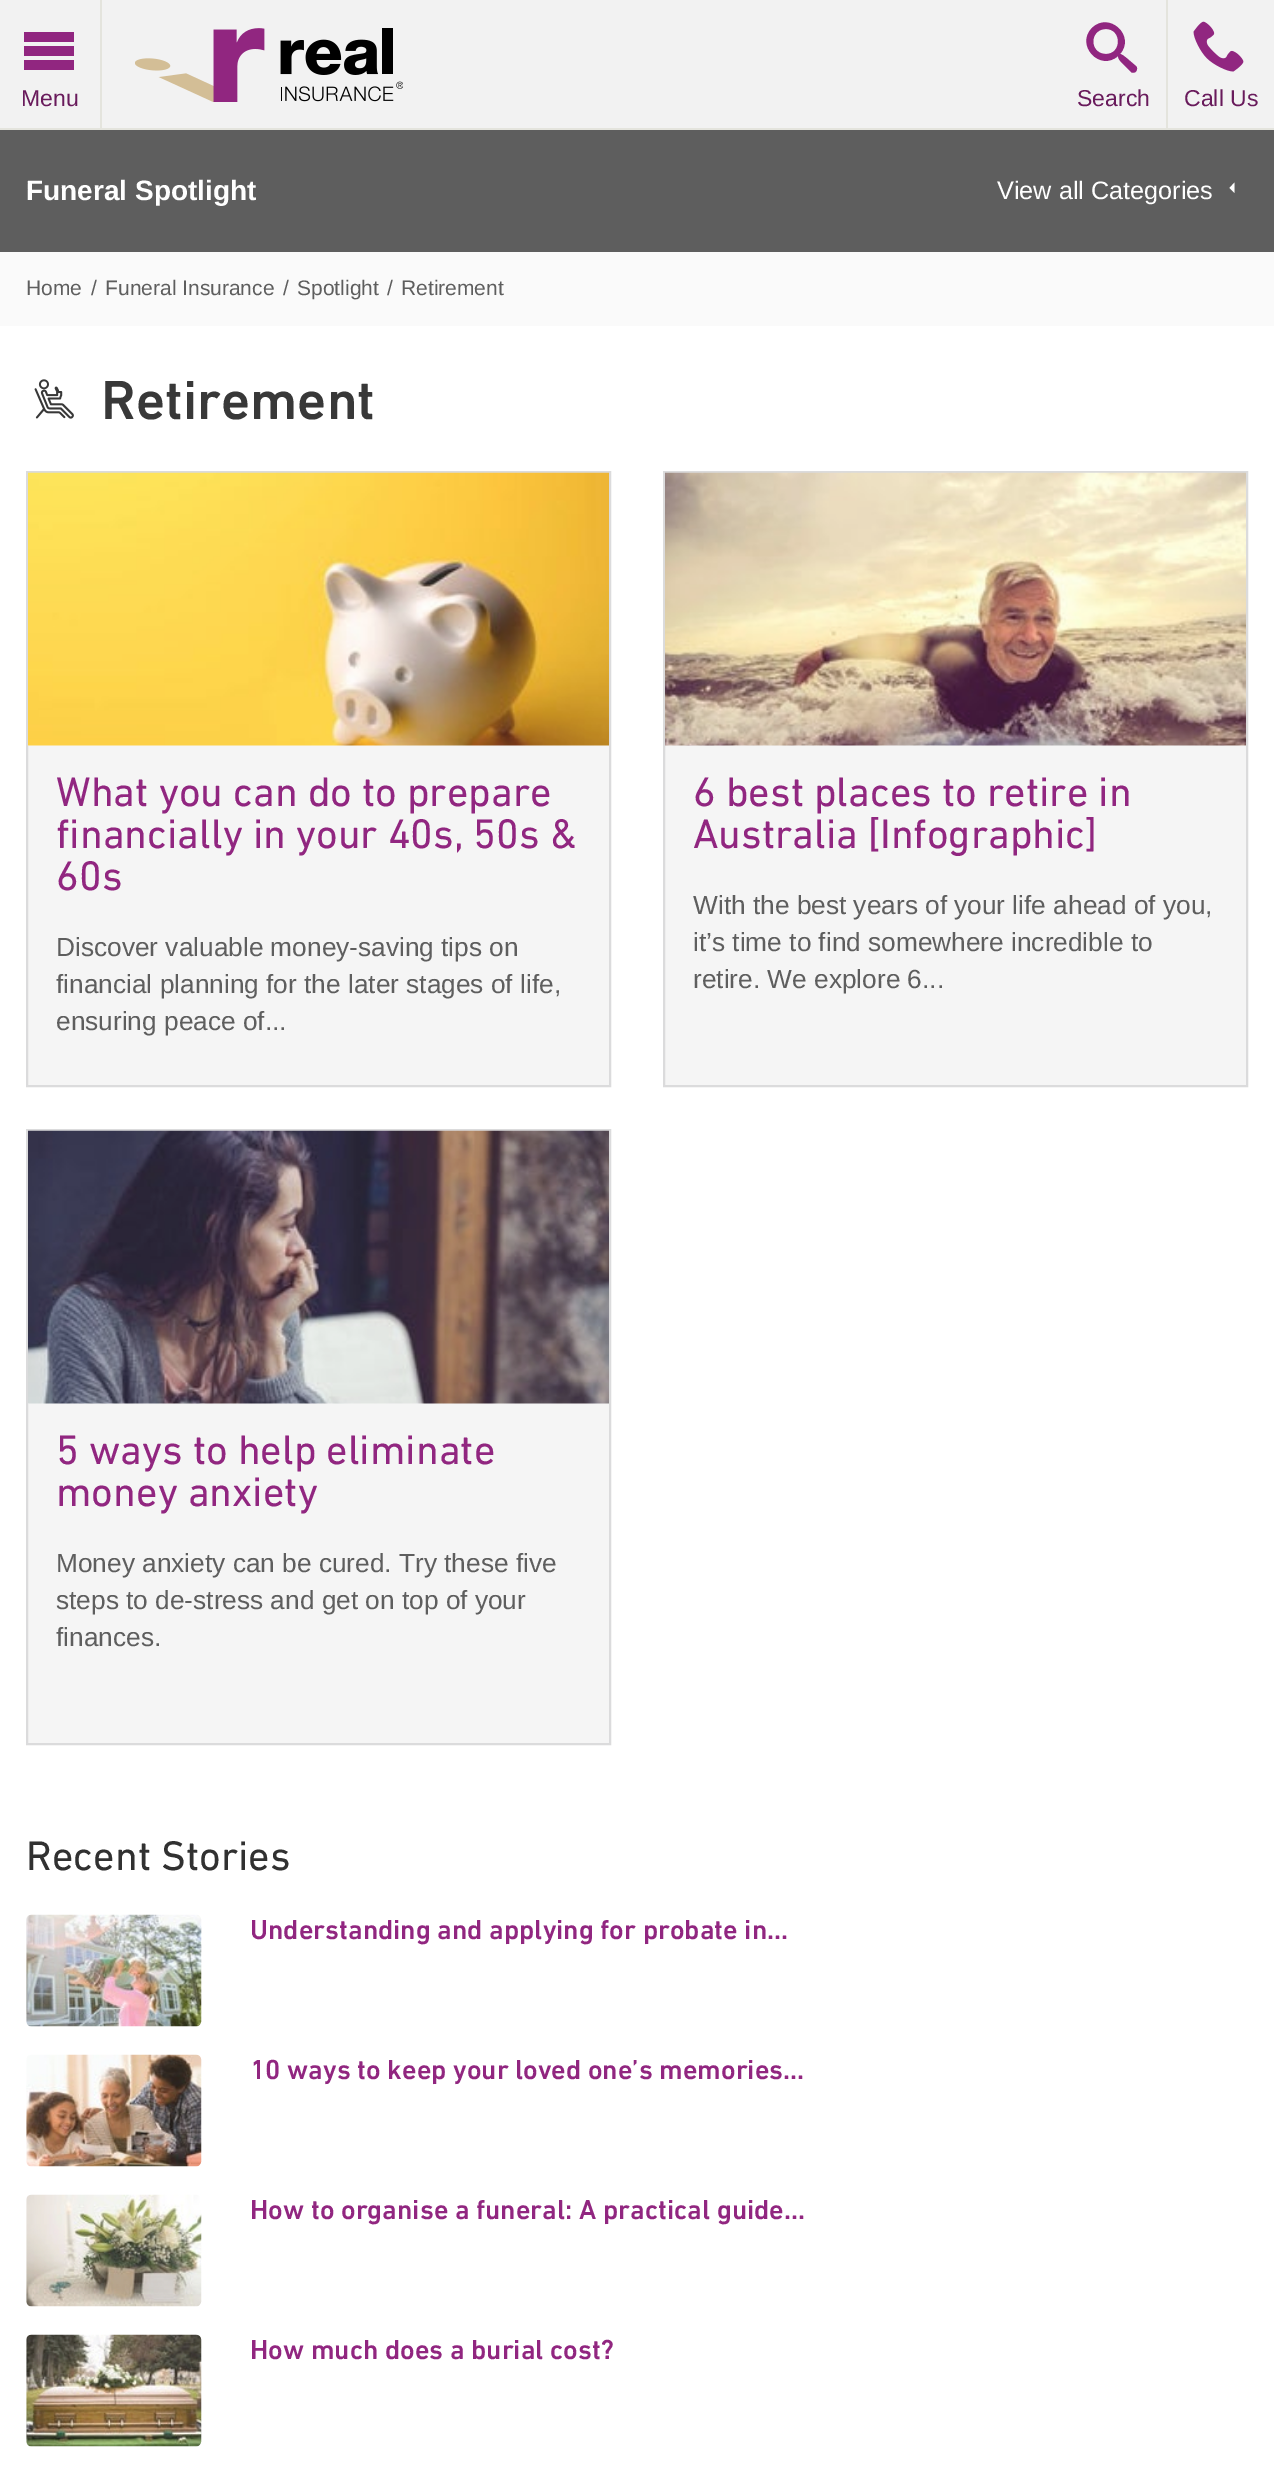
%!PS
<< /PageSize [1274 2469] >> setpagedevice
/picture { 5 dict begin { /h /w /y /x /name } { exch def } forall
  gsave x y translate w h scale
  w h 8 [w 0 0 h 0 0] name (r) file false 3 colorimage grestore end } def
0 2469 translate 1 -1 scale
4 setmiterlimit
1 setgray
0 0 1274 2469 rectfill
0.949 setgray
0 0 1274 128 rectfill
0.894 0.894 0.867 setrgbcolor
0 128 1274 2 rectfill
100 0 2 130 rectfill
0.569 0.149 0.502 setrgbcolor
newpath 24 32 moveto 74 32 lineto 74 42 lineto 24 42 lineto closepath 24 46 moveto 74 46 lineto 74 56 lineto 24 56 lineto closepath 24 60 moveto 74 60 lineto 74 70 lineto 24 70 lineto closepath fill
/LiberationSans-Regular [23 0 0 -23 0 0] selectfont
0.412 0.106 0.361 setrgbcolor
21 106 moveto (Menu) show
(img1.rgb) 135 28 268 74 picture
0.569 0.149 0.502 setrgbcolor
newpath 1136 66 moveto 1133 64 1123 54 1120 54 curveto 1136 36 1109 11 1092 28 curveto 1075 45 1100 72 1118 56 curveto 1118 59 1121 62 1123 64 curveto 1131 72 lineto 1135 75 1139 69 1136 66 curveto closepath 1106 54 moveto 1089 54 1089 29 1106 29 curveto 1122 29 1122 54 1106 54 curveto closepath fill
0.412 0.106 0.361 setrgbcolor
1077 106 moveto (Search) show
0.894 0.894 0.867 setrgbcolor
1166 0 2 130 rectfill
(img2.rgb) 1193 21 51 51 picture
0.412 0.106 0.361 setrgbcolor
1184 106 moveto (Call Us) show
0.369 setgray
0 130 1274 122 rectfill
/LiberationSans-Bold [28 0 0 -28 0 0] selectfont
1 setgray
26 200 moveto (Funeral Spotlight) show
/LiberationSans-Regular [25.25 0 0 -25.25 0 0] selectfont
997 199 moveto (View all Categories) show
newpath 1234.5 182.5 moveto 1234.5 193 lineto 1229.5 188 lineto closepath fill
0.98 setgray
0 252 1274 74 rectfill
/LiberationSans-Regular [21 0 0 -21 0 0] selectfont
0.369 setgray
26 295 moveto (Home) show
91 295 moveto (/) show
105 295 moveto (Funeral Insurance) show
283 295 moveto (/) show
297 295 moveto (Spotlight) show
387 295 moveto (/) show
401 295 moveto (Retirement) show
(img3.rgb) 34 379 40 40 picture
/DINNext-Medium [56 0 0 -56 0 0] selectfont
0.22 setgray
101 419 moveto (Retirement) show
0.961 setgray
newpath 27 472 moveto 610 472 lineto 610 1086 lineto 27 1086 lineto closepath gsave fill grestore
0.859 0.859 0.863 setrgbcolor
2 setlinewidth
stroke
(img4.rgb) 28 472 581 274 picture
/DINNext-Regular [42 0 0 -42 0 0] selectfont
0.569 0.149 0.502 setrgbcolor
56 806 moveto (What you can do to prepare) show
56 848 moveto (financially in your 40s, 50s &) show
56 890 moveto (60s) show
/LiberationSans-Regular [26.25 0 0 -26.25 0 0] selectfont
0.369 setgray
56 956 moveto (Discover valuable money-saving tips on) show
56 993 moveto (financial planning for the later stages of life,) show
56 1030 moveto (ensuring peace of...) show
0.961 setgray
newpath 664 472 moveto 1247 472 lineto 1247 1086 lineto 664 1086 lineto closepath gsave fill grestore
0.859 0.859 0.863 setrgbcolor
stroke
(img5.rgb) 665 472 581 274 picture
/DINNext-Regular [42 0 0 -42 0 0] selectfont
0.569 0.149 0.502 setrgbcolor
693 806 moveto (6 best places to retire in) show
693 848 moveto (Australia [Infographic]) show
/LiberationSans-Regular [26.25 0 0 -26.25 0 0] selectfont
0.369 setgray
693 914 moveto (With the best years of your life ahead of you,) show
693 951 moveto (it’s time to find somewhere incredible to) show
693 988 moveto (retire. We explore 6...) show
0.961 setgray
newpath 27 1130 moveto 610 1130 lineto 610 1744 lineto 27 1744 lineto closepath gsave fill grestore
0.859 0.859 0.863 setrgbcolor
stroke
(img6.rgb) 28 1130 581 274 picture
/DINNext-Regular [42 0 0 -42 0 0] selectfont
0.569 0.149 0.502 setrgbcolor
56 1464 moveto (5 ways to help eliminate) show
56 1506 moveto (money anxiety) show
/LiberationSans-Regular [26.25 0 0 -26.25 0 0] selectfont
0.369 setgray
56 1572 moveto (Money anxiety can be cured. Try these five) show
56 1609 moveto (steps to de-stress and get on top of your) show
56 1646 moveto (finances.) show
/DINNext-Regular [42 0 0 -42 0 0] selectfont
0.192 setgray
26 1870 moveto (Recent Stories) show
(img7.rgb) 26 1914 176 113 picture
/DINNext-Medium [28 0 0 -28 0 0] selectfont
0.569 0.149 0.502 setrgbcolor
250 1939 moveto (Understanding and applying for probate in...) show
(img8.rgb) 26 2054 176 113 picture
250 2079 moveto (10 ways to keep your loved one’s memories...) show
(img9.rgb) 26 2194 176 113 picture
250 2219 moveto (How to organise a funeral: A practical guide...) show
(img10.rgb) 26 2334 176 113 picture
250 2359 moveto (How much does a burial cost?) show
showpage
